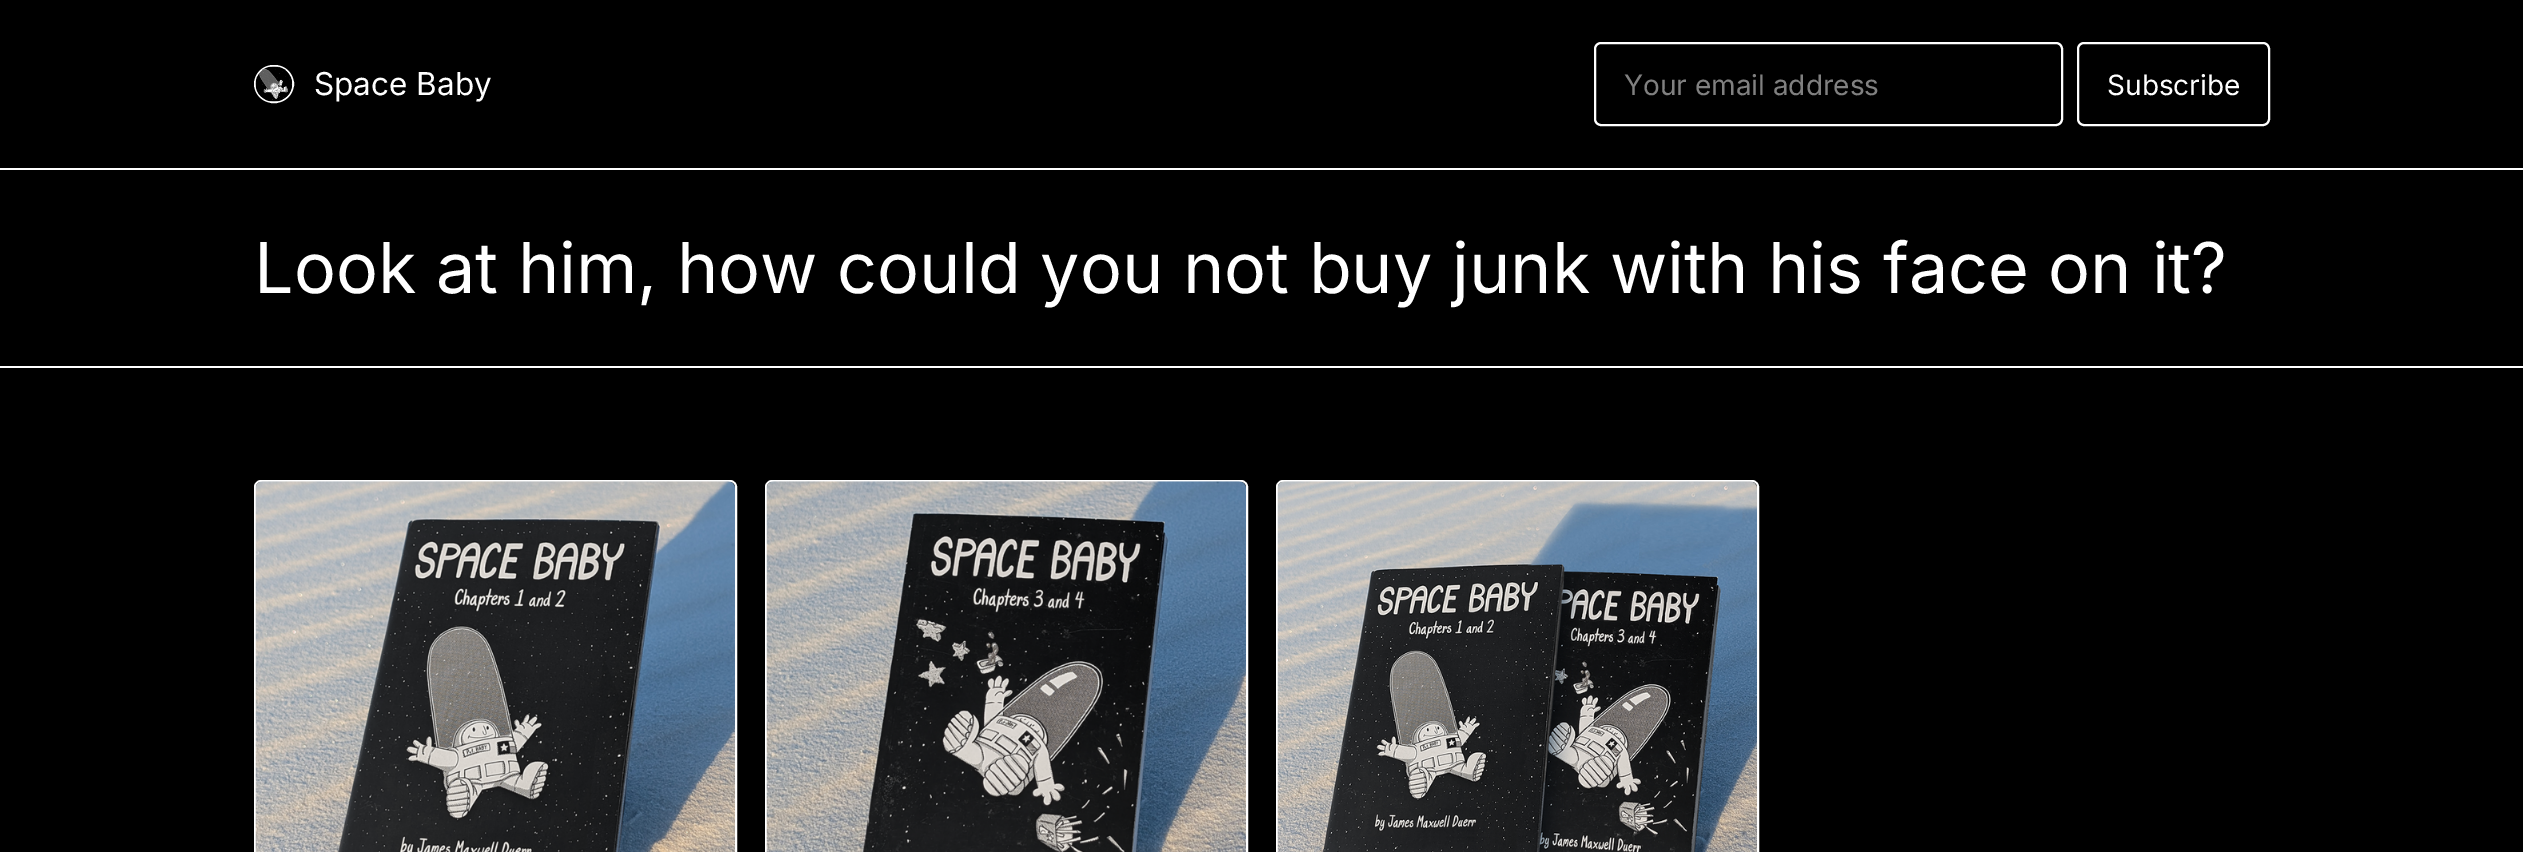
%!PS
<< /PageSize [2523 852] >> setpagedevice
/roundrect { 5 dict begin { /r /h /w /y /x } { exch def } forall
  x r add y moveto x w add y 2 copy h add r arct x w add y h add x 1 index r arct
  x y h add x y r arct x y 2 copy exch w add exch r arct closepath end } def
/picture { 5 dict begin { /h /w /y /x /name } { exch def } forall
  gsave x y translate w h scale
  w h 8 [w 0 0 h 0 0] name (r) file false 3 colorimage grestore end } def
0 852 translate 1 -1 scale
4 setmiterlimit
0 setgray
0 0 2523 852 rectfill
1 setgray
0 168 2523 2 rectfill
2 setlinewidth
255 66 38 36 18 roundrect stroke
(img1.rgb) 255 66 38 36 picture
/Inter-Regular [31.5 0 0 -31.5 0 0] selectfont
314 95 moveto (Space Baby) show
1595 43 467 82 6 roundrect stroke
/Inter-Regular [28 0 0 -28 0 0] selectfont
0.502 setgray
1624 95 moveto (Your email address) show
1 setgray
2078 43 191 82 6 roundrect stroke
2107 95 moveto (Subscribe) show
0 366 2523 2 rectfill
/Inter-Regular [70 0 0 -70 0 0] selectfont
254 293 moveto (Look at him, how could you not buy junk with his face on it?) show
255 481 481 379 6 roundrect stroke
(img2.rgb) 255 481 480 371 picture
766 481 481 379 6 roundrect stroke
(img3.rgb) 766 481 480 371 picture
1277 481 481 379 6 roundrect stroke
(img4.rgb) 1277 481 480 371 picture
showpage
